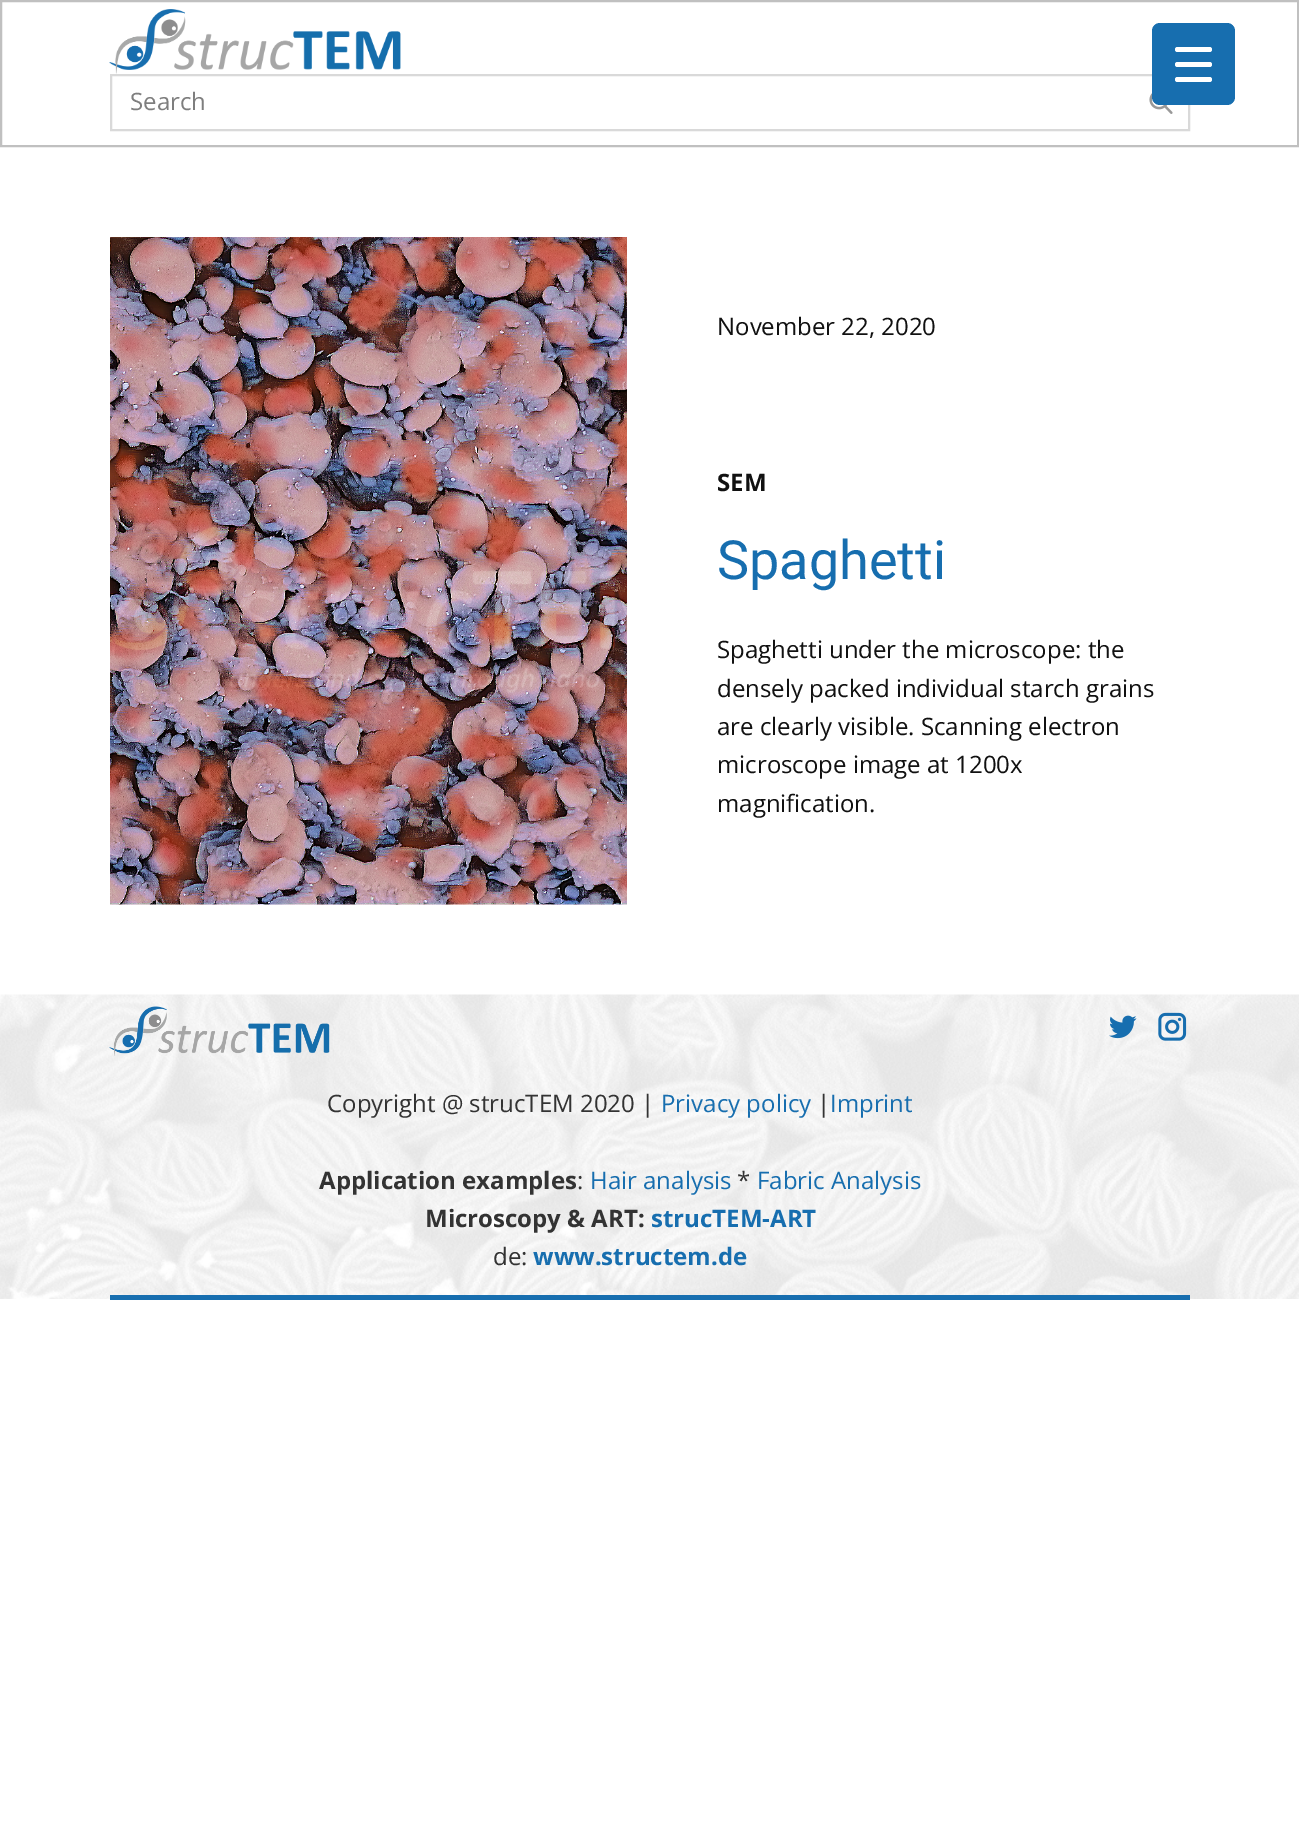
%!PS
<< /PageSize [1299 1843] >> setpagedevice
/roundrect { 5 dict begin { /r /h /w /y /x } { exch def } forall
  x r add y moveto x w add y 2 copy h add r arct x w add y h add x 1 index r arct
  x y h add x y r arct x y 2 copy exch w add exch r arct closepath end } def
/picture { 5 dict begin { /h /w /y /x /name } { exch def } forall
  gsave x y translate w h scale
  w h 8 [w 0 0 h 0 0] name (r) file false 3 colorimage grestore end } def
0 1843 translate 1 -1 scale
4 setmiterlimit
1 setgray
0 0 1299 1843 rectfill
0.753 setgray
2 setlinewidth
1 1 1297 145 rectstroke
0.851 setgray
111 75 1078 55 rectstroke
(img2.rgb) 1149 93 24 21 picture
0.09 0.431 0.686 setrgbcolor
1152 23 83 82 8 roundrect fill
1 setgray
1175 62 37 5 2.5 roundrect fill
1175 47 37 5 2.5 roundrect fill
1175 77 37 5 2.5 roundrect fill
(img1.rgb) 109 9 292 65 picture
/OpenSans-Regular [24 0 0 -24 0 0] selectfont
0.494 setgray
130 110 moveto (Search) show
(img3.rgb) 110 237 517 668 picture
0.067 setgray
717 335 moveto (November 22, 2020) show
/OpenSans-Bold [24 0 0 -24 0 0] selectfont
717 491 moveto (SEM) show
/Roboto-Regular [54 0 0 -54 0 0] selectfont
0.09 0.431 0.686 setrgbcolor
717 579 moveto (Spaghetti) show
/OpenSans-Regular [24 0 0 -24 0 0] selectfont
0.067 setgray
717 658 moveto (Spaghetti under the microscope: the) show
717 697 moveto (densely packed individual starch grains) show
717 735 moveto (are clearly visible. Scanning electron) show
717 773 moveto (microscope image at 1200x) show
717 812 moveto (magnification.) show
(img4.rgb) 0 994 1299 305 picture
(img5.rgb) 109 1006 221 50 picture
(img6.rgb) 1109 1015 28 24 picture
(img7.rgb) 1158 1012 29 29 picture
0.2 setgray
327 1112 moveto (Copyright @ strucTEM 2020 |) show
0.09 0.431 0.686 setrgbcolor
661 1112 moveto (Privacy policy) show
0.2 setgray
817 1112 moveto (|) show
0.09 0.431 0.686 setrgbcolor
830 1112 moveto (Imprint) show
/OpenSans-Bold [24 0 0 -24 0 0] selectfont
0.2 setgray
319 1189 moveto (Application examples) show
/OpenSans-Regular [24 0 0 -24 0 0] selectfont
577 1189 moveto (:) show
0.09 0.431 0.686 setrgbcolor
590 1189 moveto (Hair analysis) show
0.2 setgray
737 1189 moveto (*) show
0.09 0.431 0.686 setrgbcolor
757 1189 moveto (Fabric Analysis) show
/OpenSans-Bold [24 0 0 -24 0 0] selectfont
0.2 setgray
425 1227 moveto (Microscopy & ART:) show
0.09 0.431 0.686 setrgbcolor
651 1227 moveto (strucTEM-ART) show
/OpenSans-Regular [24 0 0 -24 0 0] selectfont
0.2 setgray
493 1265 moveto (de:) show
/OpenSans-Bold [24 0 0 -24 0 0] selectfont
0.09 0.431 0.686 setrgbcolor
533 1265 moveto (www.structem.de) show
110 1295 1080 5 rectfill
showpage
